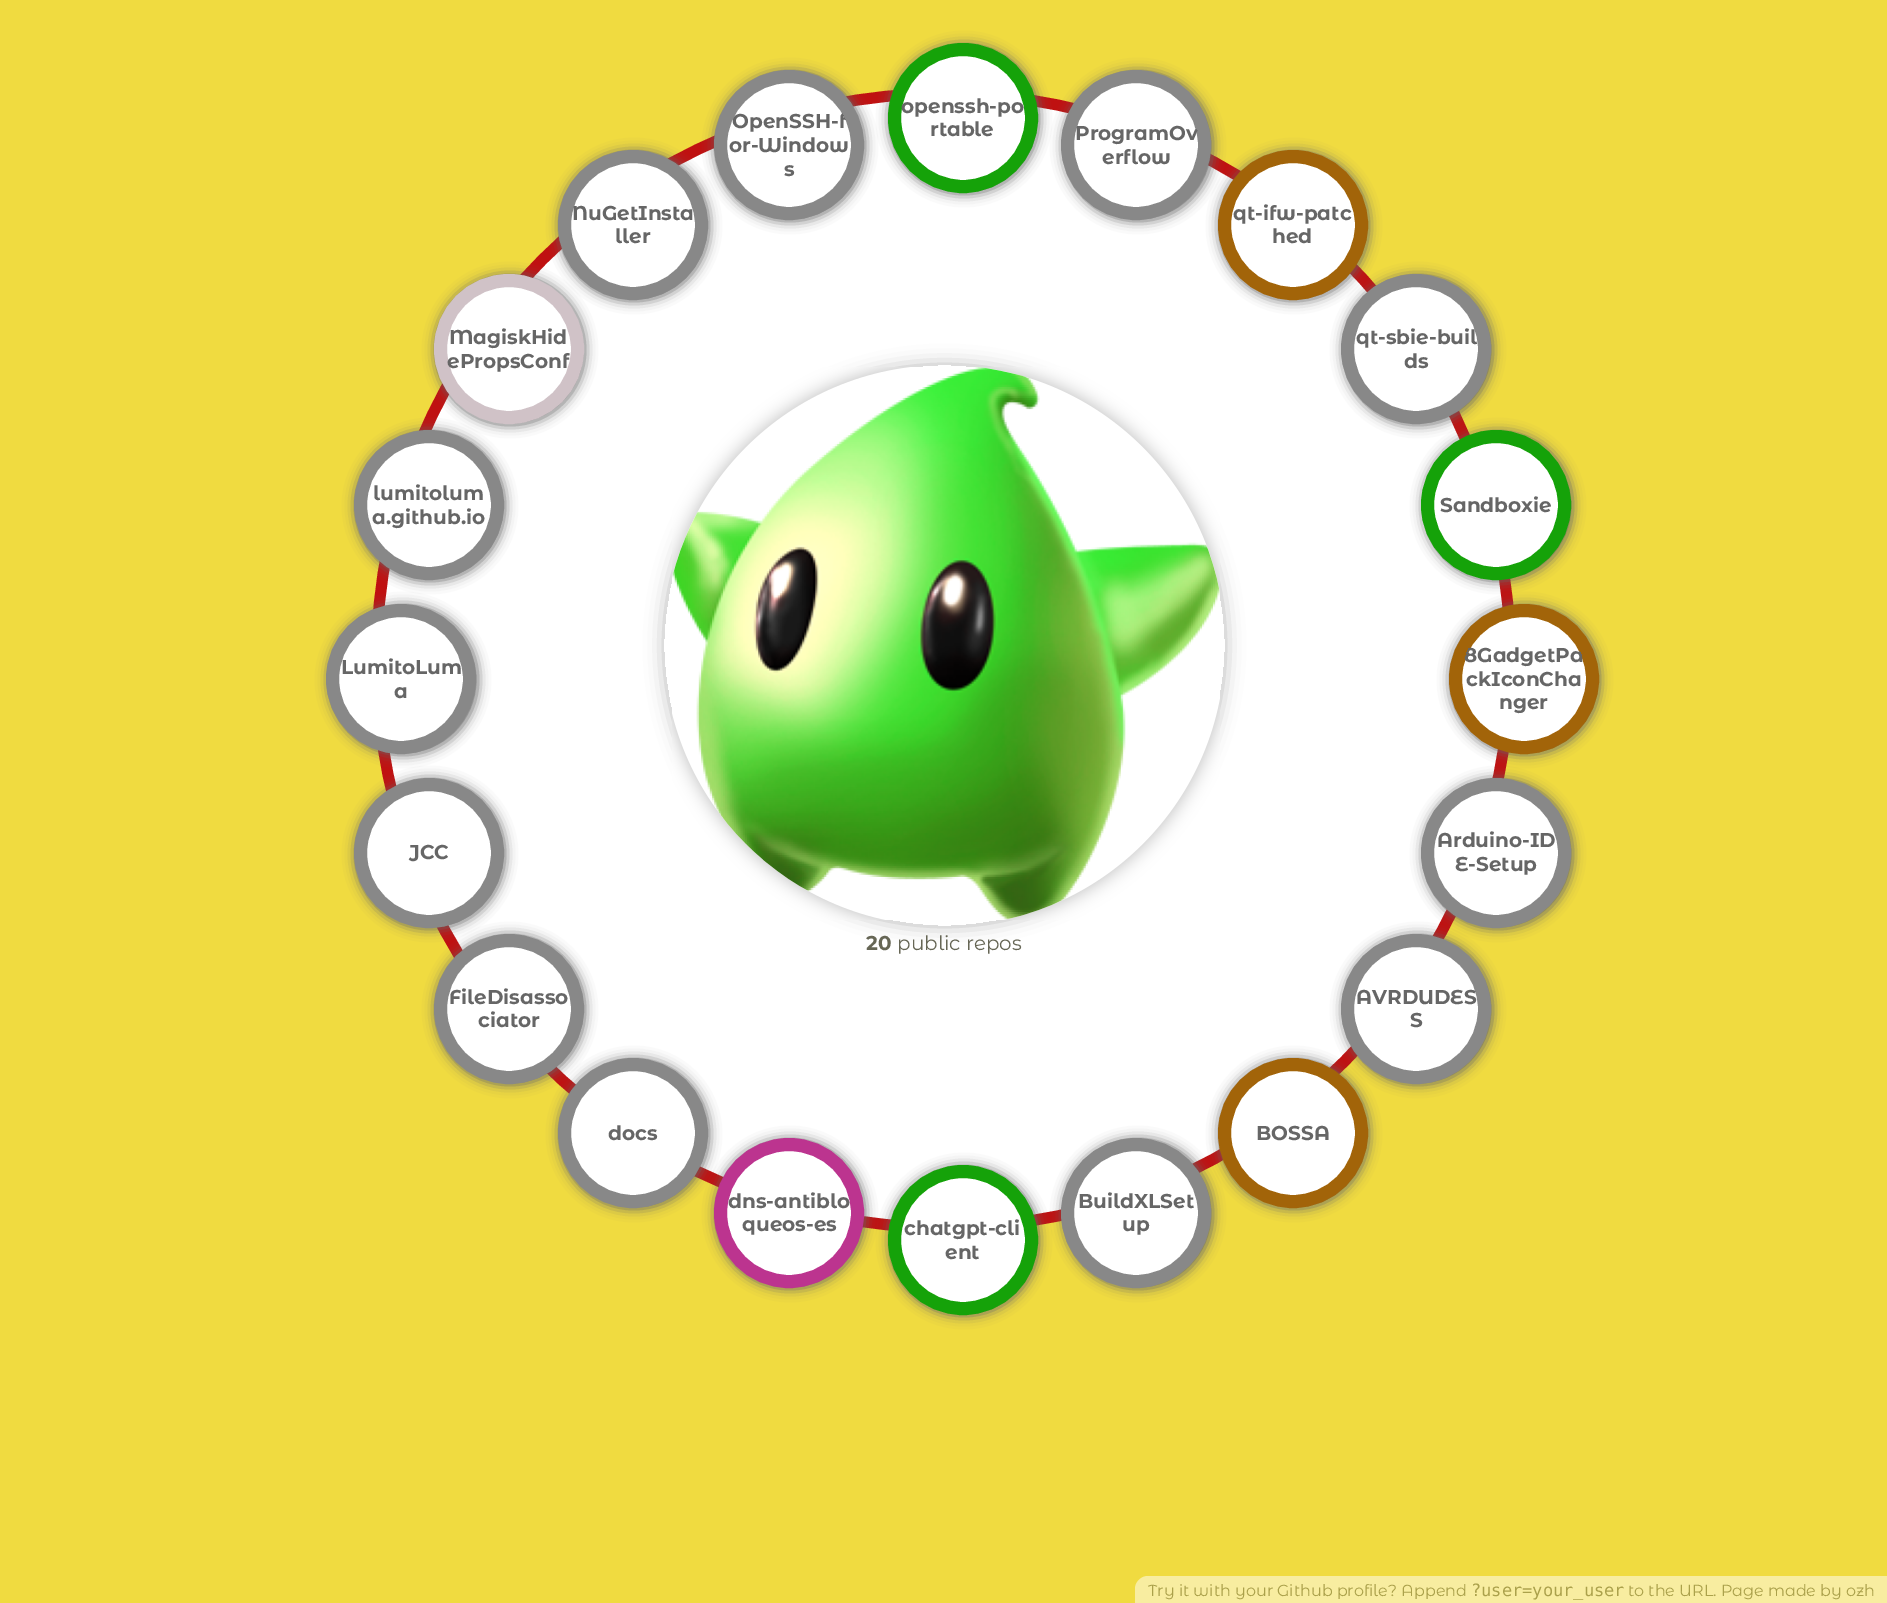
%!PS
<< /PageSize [1887 1603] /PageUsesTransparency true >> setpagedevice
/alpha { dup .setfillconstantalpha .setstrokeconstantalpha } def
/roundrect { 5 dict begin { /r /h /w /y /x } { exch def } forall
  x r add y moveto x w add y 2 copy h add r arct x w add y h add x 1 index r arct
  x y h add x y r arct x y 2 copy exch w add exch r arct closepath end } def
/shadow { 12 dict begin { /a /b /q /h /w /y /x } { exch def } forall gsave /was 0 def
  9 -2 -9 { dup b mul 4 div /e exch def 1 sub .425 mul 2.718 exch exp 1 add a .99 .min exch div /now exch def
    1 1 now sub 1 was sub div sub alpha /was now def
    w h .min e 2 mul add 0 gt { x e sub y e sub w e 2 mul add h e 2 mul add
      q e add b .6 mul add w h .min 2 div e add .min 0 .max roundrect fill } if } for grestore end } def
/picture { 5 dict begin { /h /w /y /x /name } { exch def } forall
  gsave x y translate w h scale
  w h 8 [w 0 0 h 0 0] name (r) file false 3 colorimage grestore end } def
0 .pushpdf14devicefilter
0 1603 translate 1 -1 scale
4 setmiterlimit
0.941 0.859 0.251 setrgbcolor
0 0 1887 1603 rectfill
1 setgray
newpath 943.5 660.5 567 0 360 arc closepath gsave fill grestore
0.749 0.067 0.067 setrgbcolor
11 setlinewidth
stroke
0.4 setgray
355 431 150 150 75 6 1 shadow
1 setgray
newpath 429 505 68.5 0 360 arc closepath gsave fill grestore
0.533 setgray
13 setlinewidth
stroke
0.4 setgray
435 275 150 150 75 6 1 shadow
1 setgray
newpath 509 349 68.5 0 360 arc closepath gsave fill grestore
0.816 0.761 0.78 setrgbcolor
stroke
0.4 setgray
559 151 150 150 75 6 1 shadow
1 setgray
newpath 633 225 68.5 0 360 arc closepath gsave fill grestore
0.533 setgray
stroke
0.4 setgray
715 71 150 150 75 6 1 shadow
1 setgray
newpath 789 145 68.5 0 360 arc closepath gsave fill grestore
0.533 setgray
stroke
gsave
726 83 125 125 62.5 roundrect clip newpath
/MontserratAlternates-Bold [20 0 0 -20 0 0] selectfont
0.4 setgray
732 128 moveto (OpenSSH-f) show
grestore
/MontserratAlternates-Bold [20 0 0 -20 0 0] selectfont
0.4 setgray
729 152 moveto (or-Window) show
784 176 moveto (s) show
889 44 150 150 75 6 1 shadow
1 setgray
newpath 963 118 68.5 0 360 arc closepath gsave fill grestore
0.082 0.635 0.035 setrgbcolor
stroke
0.4 setgray
901 113 moveto (openssh-po) show
930 136 moveto (rtable) show
1063 71 150 150 75 6 1 shadow
1 setgray
newpath 1136 145 68.5 0 360 arc closepath gsave fill grestore
0.533 setgray
stroke
gsave
1074 83 125 125 62.5 roundrect clip newpath
0.4 setgray
1075 140 moveto (ProgramOv) show
grestore
0.4 setgray
1102 164 moveto (erflow) show
572 220 moveto (NuGetInsta) show
615 243 moveto (ller) show
1219 151 150 150 75 6 1 shadow
1 setgray
newpath 1293 225 68.5 0 360 arc closepath gsave fill grestore
0.635 0.392 0.035 setrgbcolor
stroke
0.4 setgray
1233 220 moveto (qt-ifw-patc) show
1272 243 moveto (hed) show
449 344 moveto (MagiskHid) show
447 368 moveto (ePropsConf) show
1343 275 150 150 75 6 1 shadow
1 setgray
newpath 1416 349 68.5 0 360 arc closepath gsave fill grestore
0.533 setgray
stroke
0.4 setgray
1356 344 moveto (qt-sbie-buil) show
1404 368 moveto (ds) show
373 500 moveto (lumitolum) show
372 524 moveto (a.github.io) show
1423 431 150 150 75 6 1 shadow
1 setgray
newpath 1496 505 68.5 0 360 arc closepath gsave fill grestore
0.082 0.635 0.035 setrgbcolor
stroke
0.4 setgray
1440 512 moveto (Sandboxie) show
328 605 150 150 75 6 1 shadow
1 setgray
newpath 401 679 68.5 0 360 arc closepath gsave fill grestore
0.533 setgray
stroke
0.4 setgray
341 674 moveto (LumitoLum) show
394 698 moveto (a) show
1450 605 150 150 75 6 1 shadow
1 setgray
newpath 1524 679 68.5 0 360 arc closepath gsave fill grestore
0.635 0.392 0.035 setrgbcolor
stroke
gsave
1461 616 125 125 62.5 roundrect clip newpath
0.4 setgray
1464 662 moveto (8GadgetPa) show
grestore
0.4 setgray
1466 686 moveto (ckIconCha) show
1499 709 moveto (nger) show
715 1139 150 150 75 6 1 shadow
1 setgray
newpath 789 1213 68.5 0 360 arc closepath gsave fill grestore
0.737 0.204 0.561 setrgbcolor
stroke
0.4 setgray
559 1059 150 150 75 6 1 shadow
1 setgray
newpath 633 1133 68.5 0 360 arc closepath gsave fill grestore
0.533 setgray
stroke
0.4 setgray
435 935 150 150 75 6 1 shadow
1 setgray
newpath 509 1009 68.5 0 360 arc closepath gsave fill grestore
0.533 setgray
stroke
0.4 setgray
355 779 150 150 75 6 1 shadow
1 setgray
newpath 429 853 68.5 0 360 arc closepath gsave fill grestore
0.533 setgray
stroke
0.4 setgray
409 859 moveto (JCC) show
1423 779 150 150 75 6 1 shadow
1 setgray
newpath 1496 853 68.5 0 360 arc closepath gsave fill grestore
0.533 setgray
stroke
0.4 setgray
1437 847 moveto (Arduino-ID) show
1455 871 moveto (E-Setup) show
gsave
newpath 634 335 moveto 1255 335 lineto 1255 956 lineto 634 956 lineto closepath 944.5 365 moveto 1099.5 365 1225 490.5 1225 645.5 curveto 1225 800.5 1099.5 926 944.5 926 curveto 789.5 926 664 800.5 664 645.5 curveto 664 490.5 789.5 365 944.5 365 curveto closepath eoclip newpath
0.435 setgray
664 365 561 561 280.5 9.5 0.5 shadow
grestore
(img1.rgb) 672 367 548 553 picture
0.4 0.4 0.333 setrgbcolor
866 950 moveto (20) show
/MontserratAlternates-Regular [20 0 0 -20 0 0] selectfont
897 950 moveto (public repos) show
/MontserratAlternates-Bold [20 0 0 -20 0 0] selectfont
0.4 setgray
449 1004 moveto (FileDisasso) show
478 1027 moveto (ciator) show
1343 935 150 150 75 6 1 shadow
1 setgray
newpath 1416 1009 68.5 0 360 arc closepath gsave fill grestore
0.533 setgray
stroke
0.4 setgray
1356 1004 moveto (AVRDUDES) show
1410 1027 moveto (S) show
608 1140 moveto (docs) show
1219 1059 150 150 75 6 1 shadow
1 setgray
newpath 1293 1133 68.5 0 360 arc closepath gsave fill grestore
0.635 0.392 0.035 setrgbcolor
stroke
0.4 setgray
1256 1140 moveto (BOSSA) show
728 1208 moveto (dns-antiblo) show
742 1231 moveto (queos-es) show
1063 1139 150 150 75 6 1 shadow
1 setgray
newpath 1136 1213 68.5 0 360 arc closepath gsave fill grestore
0.533 setgray
stroke
0.4 setgray
1078 1208 moveto (BuildXLSet) show
1122 1231 moveto (up) show
889 1166 150 150 75 6 1 shadow
1 setgray
newpath 963 1240 68.5 0 360 arc closepath gsave fill grestore
0.082 0.635 0.035 setrgbcolor
stroke
0.4 setgray
904 1235 moveto (chatgpt-cli) show
945 1259 moveto (ent) show
0.973 0.929 0.627 setrgbcolor
newpath 1148 1576 moveto 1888 1576 lineto 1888 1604 lineto 1135 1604 lineto 1135 1589 lineto 1135 1582 1141 1576 1148 1576 curveto closepath fill
/MontserratAlternates-Regular [16 0 0 -16 0 0] selectfont
0.671 0.631 0.294 setrgbcolor
1148 1596 moveto (Try it with your Github profile? Append) show
/DejaVuSansMono-Regular [17 0 0 -17 0 0] selectfont
1471 1596 moveto (?user=your_user) show
/MontserratAlternates-Regular [16 0 0 -16 0 0] selectfont
1628 1596 moveto (to the URL. Page made by ozh) show
.poppdf14devicefilter showpage
